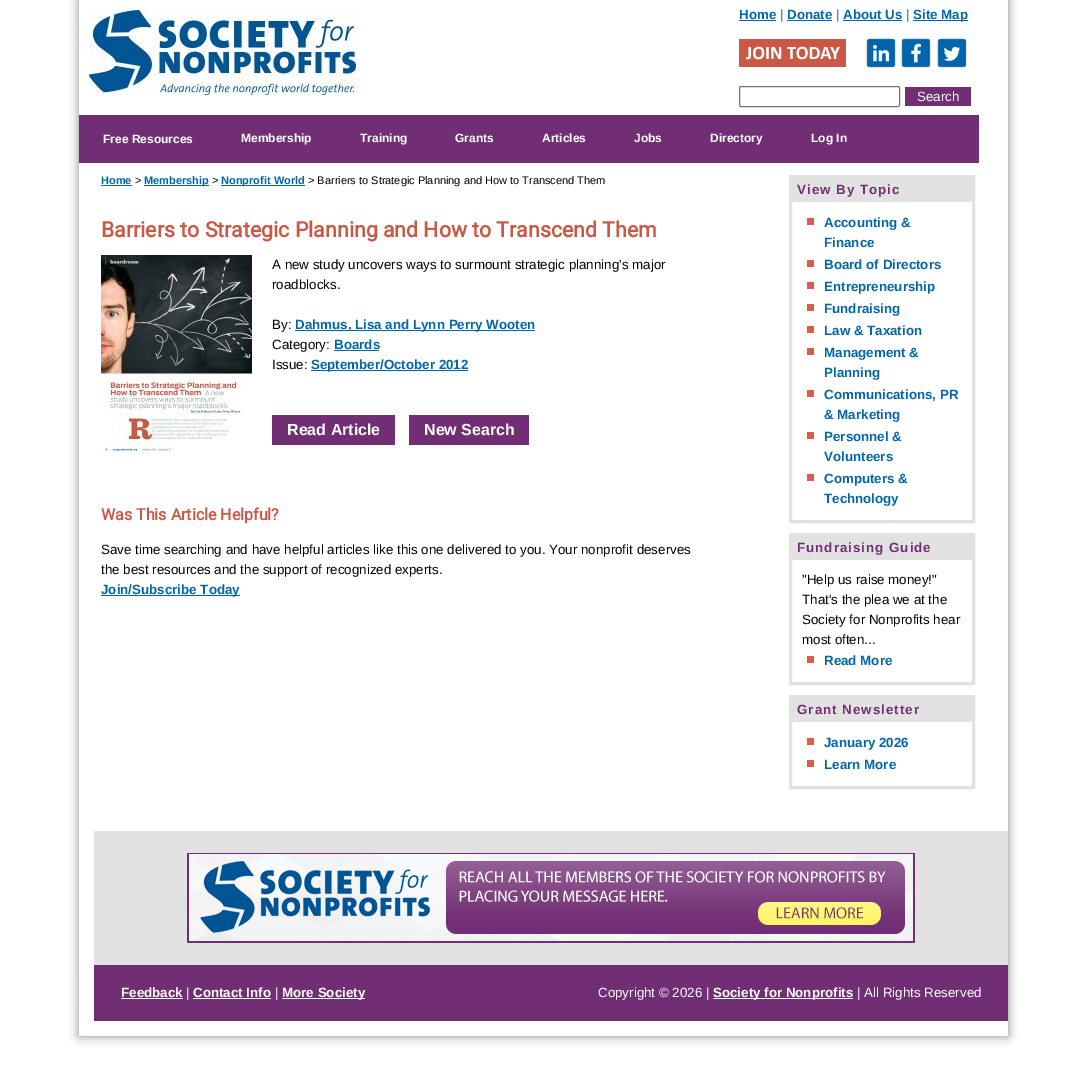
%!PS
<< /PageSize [1087 1092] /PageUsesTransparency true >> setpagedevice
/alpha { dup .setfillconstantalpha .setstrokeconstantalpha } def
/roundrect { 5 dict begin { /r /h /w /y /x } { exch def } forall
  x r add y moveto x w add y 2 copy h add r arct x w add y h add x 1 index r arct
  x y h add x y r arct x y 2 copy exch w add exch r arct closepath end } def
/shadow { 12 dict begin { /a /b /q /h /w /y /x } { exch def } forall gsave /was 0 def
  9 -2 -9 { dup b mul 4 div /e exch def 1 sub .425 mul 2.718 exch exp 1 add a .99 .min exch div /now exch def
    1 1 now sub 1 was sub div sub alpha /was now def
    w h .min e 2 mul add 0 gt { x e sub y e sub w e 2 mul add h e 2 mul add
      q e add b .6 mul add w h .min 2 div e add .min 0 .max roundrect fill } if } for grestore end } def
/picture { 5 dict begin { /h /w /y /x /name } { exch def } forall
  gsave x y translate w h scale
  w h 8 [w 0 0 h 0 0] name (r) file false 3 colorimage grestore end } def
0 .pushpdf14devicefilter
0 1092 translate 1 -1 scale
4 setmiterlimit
1 setgray
0 0 1087 1092 rectfill
gsave
newpath 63 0 moveto 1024 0 lineto 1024 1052 lineto 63 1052 lineto closepath 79 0 moveto 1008 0 lineto 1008 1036 lineto 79 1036 lineto closepath eoclip newpath
0.298 setgray
79 0 929 1036 0 5 0.7 shadow
grestore
(img1.rgb) 89 10 267 85 picture
/LiberationSans-Bold [13.35 0 0 -13.35 0 0] selectfont
0 0.4 0.675 setrgbcolor
739 19 moveto (Home) show
739 20 37 1 rectfill
/LiberationSans-Regular [13.35 0 0 -13.35 0 0] selectfont
780 19 moveto (|) show
/LiberationSans-Bold [13.35 0 0 -13.35 0 0] selectfont
787 19 moveto (Donate) show
787 20 45 1 rectfill
/LiberationSans-Regular [13.35 0 0 -13.35 0 0] selectfont
836 19 moveto (|) show
/LiberationSans-Bold [13.35 0 0 -13.35 0 0] selectfont
843 19 moveto (About Us) show
843 20 59 1 rectfill
/LiberationSans-Regular [13.35 0 0 -13.35 0 0] selectfont
906 19 moveto (|) show
913 20 55 1 rectfill
/LiberationSans-Bold [13.35 0 0 -13.35 0 0] selectfont
913 19 moveto (Site Map) show
(img2.rgb) 739 39 107 28 picture
(img3.rgb) 865 37 31 31 picture
(img4.rgb) 900 37 31 31 picture
(img5.rgb) 936 37 31 31 picture
0.463 setgray
739.5 86.5 160 20 1.5 roundrect stroke
0.447 0.18 0.455 setrgbcolor
905 87 66 19 rectfill
/LiberationSans-Regular [13.35 0 0 -13.35 0 0] selectfont
1 setgray
917 101 moveto (Search) show
0.447 0.18 0.455 setrgbcolor
79 115 900 48 rectfill
/LiberationSans-Bold [12 0 0 -12 0 0] selectfont
1 setgray
103 143 moveto (Free Resources) show
241 142 moveto (Membership) show
360 142 moveto (Training) show
455 142 moveto (Grants) show
542 142 moveto (Articles) show
634 142 moveto (Jobs) show
710 142 moveto (Directory) show
811 142 moveto (Log In) show
/LiberationSans-Bold [11 0 0 -11 0 0] selectfont
0 0.4 0.675 setrgbcolor
101 184 moveto (Home) show
101 185 31 1 rectfill
/LiberationSans-Regular [11 0 0 -11 0 0] selectfont
0 setgray
135 184 moveto (>) show
0 0.4 0.675 setrgbcolor
144 185 65 1 rectfill
/LiberationSans-Bold [11 0 0 -11 0 0] selectfont
144 184 moveto (Membership) show
/LiberationSans-Regular [11 0 0 -11 0 0] selectfont
0 setgray
212 184 moveto (>) show
0 0.4 0.675 setrgbcolor
221 185 84 1 rectfill
/LiberationSans-Bold [11 0 0 -11 0 0] selectfont
221 184 moveto (Nonprofit World) show
/LiberationSans-Regular [11 0 0 -11 0 0] selectfont
0 setgray
308 184 moveto (> Barriers to Strategic Planning and How to Transcend Them) show
/Roboto-Bold [21.3 0 0 -21.3 0 0] selectfont
0.796 0.341 0.271 setrgbcolor
101 237 moveto (Barriers to Strategic Planning and How to Transcend Them) show
(img6.rgb) 101 255 151 200 picture
/LiberationSans-Regular [13.35 0 0 -13.35 0 0] selectfont
0 setgray
272 269 moveto (A new study uncovers ways to surmount strategic planning's major) show
272 289 moveto (roadblocks.) show
272 329 moveto (By:) show
0 0.4 0.675 setrgbcolor
295 330 240 1 rectfill
/LiberationSans-Bold [13.35 0 0 -13.35 0 0] selectfont
295 329 moveto (Dahmus, Lisa and Lynn Perry Wooten) show
/LiberationSans-Regular [13.35 0 0 -13.35 0 0] selectfont
0 setgray
272 349 moveto (Category:) show
/LiberationSans-Bold [13.35 0 0 -13.35 0 0] selectfont
0 0.4 0.675 setrgbcolor
334 349 moveto (Boards) show
334 350 45 1 rectfill
/LiberationSans-Regular [13.35 0 0 -13.35 0 0] selectfont
0 setgray
272 369 moveto (Issue:) show
0 0.4 0.675 setrgbcolor
311 370 157 1 rectfill
/LiberationSans-Bold [13.35 0 0 -13.35 0 0] selectfont
311 369 moveto (September/October 2012) show
0.447 0.18 0.455 setrgbcolor
272 415 123 30 rectfill
/LiberationSans-Bold [16 0 0 -16 0 0] selectfont
1 setgray
287 435 moveto (Read Article) show
0.447 0.18 0.455 setrgbcolor
409 415 120 30 rectfill
1 setgray
424 435 moveto (New Search) show
/Roboto-Bold [16 0 0 -16 0 0] selectfont
0.796 0.341 0.271 setrgbcolor
101 520 moveto (Was This Article Helpful?) show
/LiberationSans-Regular [13.35 0 0 -13.35 0 0] selectfont
0 setgray
101 554 moveto (Save time searching and have helpful articles like this one delivered to you. Your nonprofit deserves) show
101 574 moveto (the best resources and the support of recognized experts.) show
0 0.4 0.675 setrgbcolor
101 595 139 1 rectfill
/LiberationSans-Bold [13.35 0 0 -13.35 0 0] selectfont
101 594 moveto (Join/Subscribe Today) show
0.886 setgray
3 setlinewidth
790.5 176.5 183 345 rectstroke
792 178 180 24 rectfill
0.447 0.18 0.455 setrgbcolor
797 194 moveto 1 0 (View By Topic) ashow
0.855 0.365 0.278 setrgbcolor
807 218 7 7 rectfill
0 0.4 0.675 setrgbcolor
824 227 moveto (Accounting &) show
824 247 moveto (Finance) show
0.855 0.365 0.278 setrgbcolor
807 260 7 7 rectfill
0 0.4 0.675 setrgbcolor
824 269 moveto (Board of Directors) show
0.855 0.365 0.278 setrgbcolor
807 282 7 7 rectfill
0 0.4 0.675 setrgbcolor
824 291 moveto (Entrepreneurship) show
0.855 0.365 0.278 setrgbcolor
807 304 7 7 rectfill
0 0.4 0.675 setrgbcolor
824 313 moveto (Fundraising) show
0.855 0.365 0.278 setrgbcolor
807 326 7 7 rectfill
0 0.4 0.675 setrgbcolor
824 335 moveto (Law & Taxation) show
0.855 0.365 0.278 setrgbcolor
807 348 7 7 rectfill
0 0.4 0.675 setrgbcolor
824 357 moveto (Management &) show
824 377 moveto (Planning) show
0.855 0.365 0.278 setrgbcolor
807 390 7 7 rectfill
0 0.4 0.675 setrgbcolor
824 399 moveto (Communications, PR) show
824 419 moveto (& Marketing) show
0.855 0.365 0.278 setrgbcolor
807 432 7 7 rectfill
0 0.4 0.675 setrgbcolor
824 441 moveto (Personnel &) show
824 461 moveto (Volunteers) show
0.855 0.365 0.278 setrgbcolor
807 474 7 7 rectfill
0 0.4 0.675 setrgbcolor
824 483 moveto (Computers &) show
824 503 moveto (Technology) show
0.886 setgray
790.5 534.5 183 149 rectstroke
792 536 180 24 rectfill
0.447 0.18 0.455 setrgbcolor
797 552 moveto 1 0 (Fundraising Guide) ashow
/LiberationSans-Regular [13.35 0 0 -13.35 0 0] selectfont
0 setgray
802 584 moveto ("Help us raise money!") show
802 604 moveto (That's the plea we at the) show
802 624 moveto (Society for Nonprofits hear) show
802 644 moveto (most often...) show
0.855 0.365 0.278 setrgbcolor
807 656 7 7 rectfill
/LiberationSans-Bold [13.35 0 0 -13.35 0 0] selectfont
0 0.4 0.675 setrgbcolor
824 665 moveto (Read More) show
0.886 setgray
790.5 696.5 183 91 rectstroke
792 698 180 24 rectfill
0.447 0.18 0.455 setrgbcolor
797 714 moveto 1 0 (Grant Newsletter) ashow
0.855 0.365 0.278 setrgbcolor
807 738 7 7 rectfill
0 0.4 0.675 setrgbcolor
824 747 moveto (January 2026) show
0.855 0.365 0.278 setrgbcolor
807 760 7 7 rectfill
0 0.4 0.675 setrgbcolor
824 769 moveto (Learn More) show
0.886 setgray
94 831 914 134 rectfill
(img7.rgb) 187 853 728 90 picture
0.447 0.18 0.455 setrgbcolor
94 965 914 56 rectfill
1 setgray
121 997 moveto (Feedback) show
121 998 62 1 rectfill
/LiberationSans-Regular [13.35 0 0 -13.35 0 0] selectfont
186 997 moveto (|) show
/LiberationSans-Bold [13.35 0 0 -13.35 0 0] selectfont
193 997 moveto (Contact Info) show
193 998 78 1 rectfill
/LiberationSans-Regular [13.35 0 0 -13.35 0 0] selectfont
275 997 moveto (|) show
282 998 83 1 rectfill
/LiberationSans-Bold [13.35 0 0 -13.35 0 0] selectfont
282 997 moveto (More Society) show
/LiberationSans-Regular [13.35 0 0 -13.35 0 0] selectfont
598 997 moveto (Copyright © 2026 |) show
713 998 140 1 rectfill
/LiberationSans-Bold [13.35 0 0 -13.35 0 0] selectfont
713 997 moveto (Society for Nonprofits) show
/LiberationSans-Regular [13.35 0 0 -13.35 0 0] selectfont
857 997 moveto (| All Rights Reserved) show
.poppdf14devicefilter showpage
